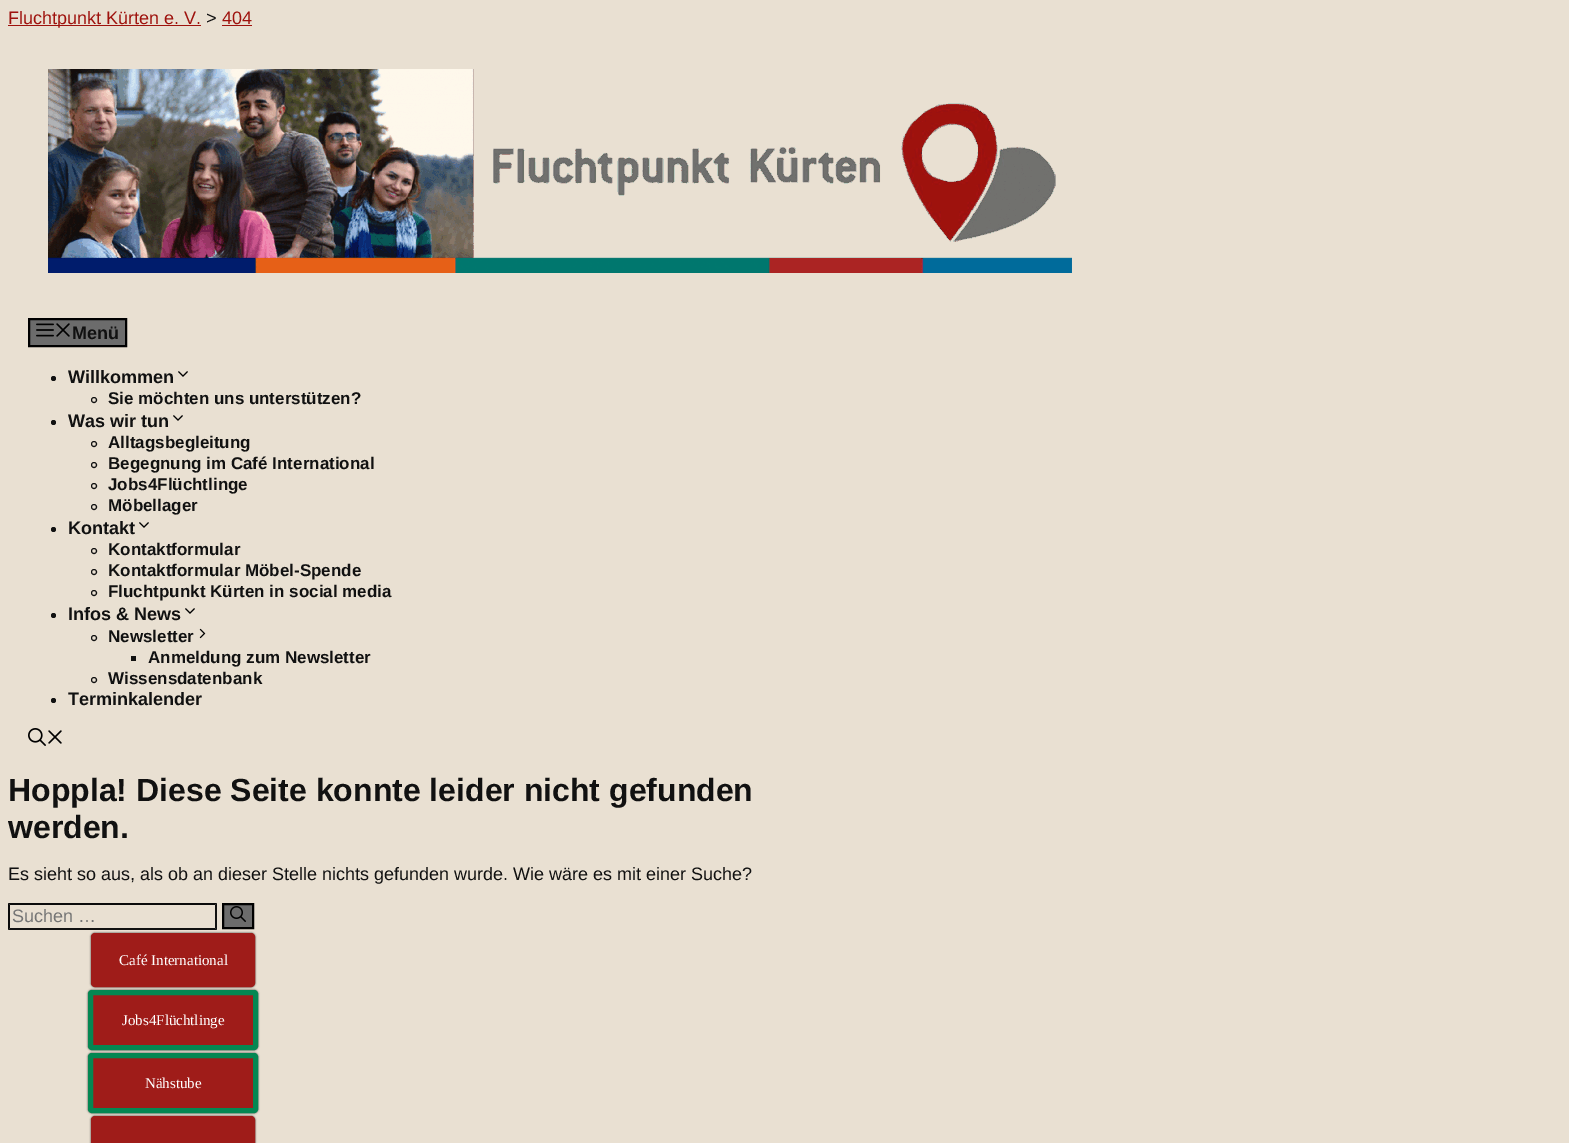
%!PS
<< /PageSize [1569 1143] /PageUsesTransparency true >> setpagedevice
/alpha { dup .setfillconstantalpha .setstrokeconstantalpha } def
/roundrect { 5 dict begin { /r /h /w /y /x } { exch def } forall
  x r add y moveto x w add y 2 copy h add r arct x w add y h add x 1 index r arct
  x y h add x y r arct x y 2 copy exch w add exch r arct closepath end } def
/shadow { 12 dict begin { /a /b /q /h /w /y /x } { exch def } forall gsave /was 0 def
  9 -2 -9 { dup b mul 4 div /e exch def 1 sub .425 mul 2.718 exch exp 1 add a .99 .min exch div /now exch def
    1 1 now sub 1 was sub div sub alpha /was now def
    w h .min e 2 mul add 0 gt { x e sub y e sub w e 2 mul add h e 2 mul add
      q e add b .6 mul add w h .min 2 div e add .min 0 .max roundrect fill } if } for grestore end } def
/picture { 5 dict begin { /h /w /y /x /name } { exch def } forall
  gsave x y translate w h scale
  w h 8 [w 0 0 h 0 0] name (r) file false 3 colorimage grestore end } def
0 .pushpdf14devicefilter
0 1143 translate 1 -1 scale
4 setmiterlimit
0.914 0.878 0.824 setrgbcolor
0 0 1569 1143 rectfill
0.62 0.071 0.051 setrgbcolor
8 25 193 1 rectfill
/LiberationSans-Regular [18 0 0 -18 0 0] selectfont
8 24 moveto (Fluchtpunkt Kürten e. V.) show
0.067 setgray
206 24 moveto (>) show
0.62 0.071 0.051 setrgbcolor
222 24 moveto (404) show
222 25 30 1 rectfill
(img1.rgb) 48 69 1024 204 picture
0.424 setgray
newpath 29 319 moveto 126 319 lineto 126 346 lineto 29 346 lineto closepath gsave fill grestore
0 setgray
2 setlinewidth
stroke
(img2.rgb) 36 323 18 14 picture
(img3.rgb) 56 323 14 14 picture
/LiberationSans-Bold [18 0 0 -18 0 0] selectfont
0.067 setgray
72 339 moveto (Menü) show
68 383 moveto (Willkommen) show
(img4.rgb) 178 371 10 6 picture
newpath 53.5 378.5 2.5 0 360 arc closepath fill
1 setlinewidth
newpath 94 400 2.5 0 360 arc closepath stroke
/LiberationSans-Bold [17 0 0 -17 0 0] selectfont
108 404 moveto (Sie möchten uns unterstützen?) show
/LiberationSans-Bold [18 0 0 -18 0 0] selectfont
68 427 moveto (Was wir tun) show
(img4.rgb) 173 415 10 6 picture
newpath 53.5 422.5 2.5 0 360 arc closepath fill
newpath 94 444 2.5 0 360 arc closepath stroke
/LiberationSans-Bold [17 0 0 -17 0 0] selectfont
108 448 moveto (Alltagsbegleitung) show
newpath 94 465 2.5 0 360 arc closepath stroke
108 469 moveto (Begegnung im Café International) show
newpath 94 486 2.5 0 360 arc closepath stroke
108 490 moveto (Jobs4Flüchtlinge) show
newpath 94 507 2.5 0 360 arc closepath stroke
108 511 moveto (Möbellager) show
/LiberationSans-Bold [18 0 0 -18 0 0] selectfont
68 534 moveto (Kontakt) show
(img4.rgb) 139 522 10 6 picture
newpath 53.5 529.5 2.5 0 360 arc closepath fill
newpath 94 551 2.5 0 360 arc closepath stroke
/LiberationSans-Bold [17 0 0 -17 0 0] selectfont
108 555 moveto (Kontaktformular) show
newpath 94 572 2.5 0 360 arc closepath stroke
108 576 moveto (Kontaktformular Möbel-Spende) show
newpath 94 593 2.5 0 360 arc closepath stroke
108 597 moveto (Fluchtpunkt Kürten in social media) show
/LiberationSans-Bold [18 0 0 -18 0 0] selectfont
68 620 moveto (Infos & News) show
(img4.rgb) 185 608 10 6 picture
newpath 53.5 615.5 2.5 0 360 arc closepath fill
newpath 94 638 2.5 0 360 arc closepath stroke
/LiberationSans-Bold [17 0 0 -17 0 0] selectfont
108 642 moveto (Newsletter) show
(img5.rgb) 199 628 7 11 picture
131 656 5 5 rectfill
148 663 moveto (Anmeldung zum Newsletter) show
newpath 94 680 2.5 0 360 arc closepath stroke
108 684 moveto (Wissensdatenbank) show
newpath 53.5 700.5 2.5 0 360 arc closepath fill
/LiberationSans-Bold [18 0 0 -18 0 0] selectfont
68 705 moveto (Terminkalender) show
(img6.rgb) 28 728 18 18 picture
(img7.rgb) 48 730 14 14 picture
/LiberationSans-Bold [32 0 0 -32 0 0] selectfont
8 801 moveto (Hoppla! Diese Seite konnte leider nicht gefunden) show
8 838 moveto (werden.) show
/LiberationSans-Regular [18 0 0 -18 0 0] selectfont
8 880 moveto (Es sieht so aus, als ob an dieser Stelle nichts gefunden wurde. Wie wäre es mit einer Suche?) show
0.043 setgray
newpath 8 903 moveto 217 903 lineto 215 905 lineto 10 905 lineto closepath fill
0.067 setgray
newpath 217 903 moveto 217 930 lineto 215 928 lineto 215 905 lineto closepath fill
newpath 217 930 moveto 8 930 lineto 10 928 lineto 215 928 lineto closepath fill
0.043 setgray
newpath 8 930 moveto 8 903 lineto 10 905 lineto 10 928 lineto closepath fill
0.459 setgray
12 922 moveto (Suchen …) show
0.424 setgray
newpath 223 904 moveto 253 904 lineto 253 928 lineto 223 928 lineto closepath gsave fill grestore
0 setgray
2 setlinewidth
stroke
(img8.rgb) 230 906 16 16 picture
0.2 setgray
91 933 164 54 4 1 1 shadow
0.624 0.11 0.098 setrgbcolor
92 934 162 52 3 roundrect gsave fill grestore
stroke
/LiberationSerif-Regular [15 0 0 -15 0 0] selectfont
1 setgray
119 965 moveto (Café International) show
0.2 setgray
88 990 170 60 4 1 1 shadow
0.624 0.11 0.098 setrgbcolor
90.5 992.5 165 55 1.5 roundrect gsave fill grestore
0.016 0.529 0.322 setrgbcolor
5 setlinewidth
stroke
1 setgray
122 1025 moveto (Jobs4Flüchtlinge) show
0.2 setgray
88 1053 170 60 4 1 1 shadow
0.624 0.11 0.098 setrgbcolor
90.5 1055.5 165 55 1.5 roundrect gsave fill grestore
0.016 0.529 0.322 setrgbcolor
stroke
1 setgray
145 1088 moveto (Nähstube) show
0.2 setgray
91 1116 164 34 4 1 1 shadow
0.624 0.11 0.098 setrgbcolor
92 1117 162 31 3 roundrect gsave fill grestore
2 setlinewidth
stroke
.poppdf14devicefilter showpage
